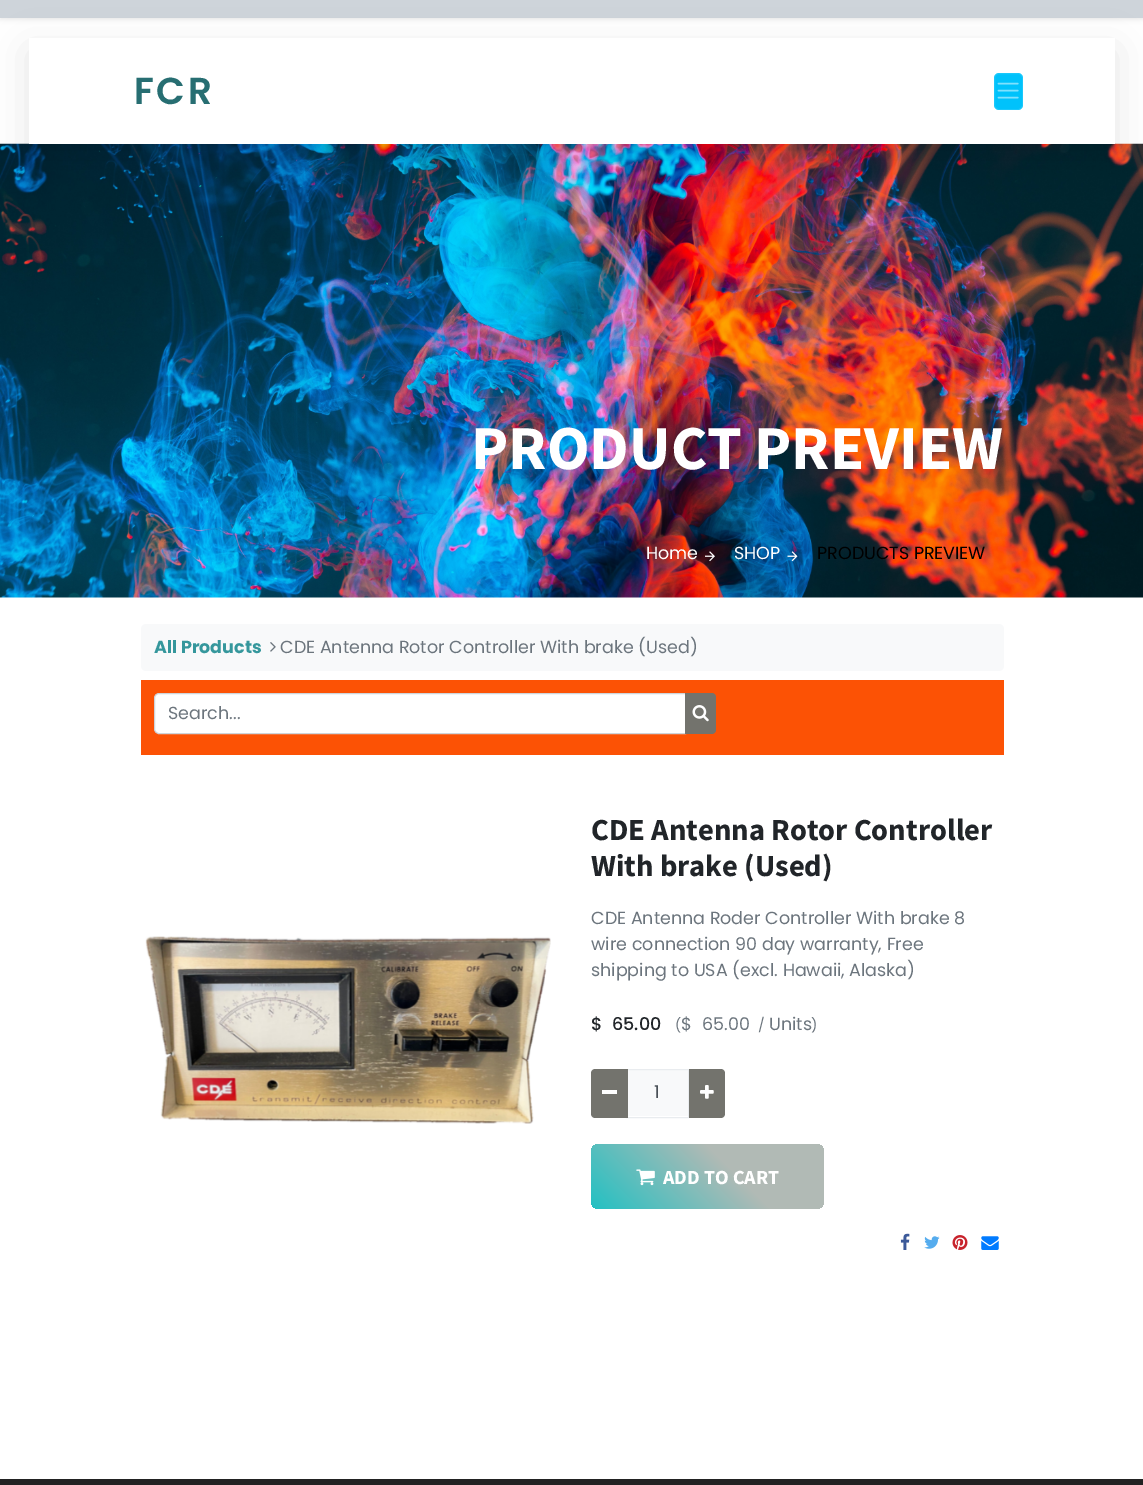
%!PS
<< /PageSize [1143 1485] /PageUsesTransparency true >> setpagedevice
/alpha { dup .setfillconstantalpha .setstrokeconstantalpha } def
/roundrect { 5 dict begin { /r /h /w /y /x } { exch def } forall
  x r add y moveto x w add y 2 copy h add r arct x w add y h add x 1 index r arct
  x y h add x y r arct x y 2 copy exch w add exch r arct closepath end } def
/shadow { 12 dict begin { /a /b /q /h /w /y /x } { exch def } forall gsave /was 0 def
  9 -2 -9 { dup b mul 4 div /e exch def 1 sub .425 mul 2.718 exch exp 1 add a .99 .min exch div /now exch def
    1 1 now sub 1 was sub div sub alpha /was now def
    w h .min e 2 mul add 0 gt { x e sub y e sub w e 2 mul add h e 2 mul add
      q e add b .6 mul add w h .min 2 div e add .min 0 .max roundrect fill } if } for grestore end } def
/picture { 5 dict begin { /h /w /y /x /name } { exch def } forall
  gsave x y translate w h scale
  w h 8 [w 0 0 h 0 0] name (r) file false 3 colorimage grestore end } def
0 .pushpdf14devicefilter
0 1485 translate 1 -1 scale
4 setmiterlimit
1 setgray
0 0 1143 1485 rectfill
0 setgray
0 3 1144 17 0 2 0.07 shadow
0.808 0.831 0.855 setrgbcolor
0 0 1143 18 rectfill
(img2.rgb) 0 143 1143 455 picture
0 setgray
29 50 1086 106 0 19 0.1 shadow
1 setgray
29 38 1086 106 rectfill
/Poppins-SemiBold [37.5 0 0 -37.5 0 0] selectfont
0.153 0.431 0.447 setrgbcolor
134 104 moveto 2.5 0 (FCR) ashow
0 0.761 0.984 setrgbcolor
994 73 29 37 5 roundrect fill
0.1 alpha
1 setgray
994.5 73.5 28 36 4.5 roundrect stroke
1 alpha
(img1.rgb) 997 82 22 17 picture
/SourceSansPro-Bold [62.5 0 0 -62.5 0 0] selectfont
471 469 moveto (PRODUCT PREVIEW) show
/Poppins-Regular [17.5 0 0 -17.5 0 0] selectfont
646 559 moveto (Home) show
(img3.rgb) 705 551 10 11 picture
734 559 moveto (SHOP) show
(img4.rgb) 787 551 11 11 picture
0 setgray
817 559 moveto (PRODUCTS PREVIEW) show
0.973 0.976 0.98 setrgbcolor
141 624 863 47 5 roundrect fill
/Poppins-Bold [17.5 0 0 -17.5 0 0] selectfont
0.208 0.592 0.612 setrgbcolor
154 653 moveto (All Products) show
(img5.rgb) 270 642 6 10 picture
/Poppins-Regular [17.5 0 0 -17.5 0 0] selectfont
0.424 0.459 0.49 setrgbcolor
280 653 moveto (CDE Antenna Rotor Controller With brake \(Used\)) show
0.988 0.322 0.02 setrgbcolor
141 680 863 75 rectfill
1 setgray
newpath 158 694 moveto 685 694 lineto 685 733 lineto 158 733 lineto 156.5 733 155 731.5 155 730 curveto 155 697 lineto 155 695.5 156.5 694 158 694 curveto closepath fill
0.808 0.831 0.855 setrgbcolor
newpath 159 693.5 moveto 685.5 693.5 lineto 685.5 733.5 lineto 159 733.5 lineto 156.5 733.5 154.5 731.5 154.5 729 curveto 154.5 698 lineto 154.5 695.5 156.5 693.5 159 693.5 curveto closepath stroke
0.424 0.459 0.49 setrgbcolor
168 719 moveto (Search...) show
0.451 0.451 0.427 setrgbcolor
newpath 685 693 moveto 712 693 lineto 714 693 716 695 716 697 curveto 716 730 lineto 716 732 714 734 712 734 curveto 685 734 lineto closepath fill
(img6.rgb) 692 705 17 17 picture
(img7.rgb) 145 936 406 188 picture
/SourceSansPro-Bold [30.6 0 0 -30.6 0 0] selectfont
0.129 0.145 0.161 setrgbcolor
591 840 moveto (CDE Antenna Rotor Controller) show
591 876 moveto (With brake \(Used\)) show
/Poppins-Regular [17.5 0 0 -17.5 0 0] selectfont
0.424 0.459 0.49 setrgbcolor
591 924 moveto (CDE Antenna Roder Controller With brake 8) show
591 950 moveto (wire connection 90 day warranty, Free) show
591 976 moveto (shipping to USA \(excl. Hawaii, Alaska\)) show
/Poppins-Medium [17.5 0 0 -17.5 0 0] selectfont
0.129 0.145 0.161 setrgbcolor
591 1030 moveto ($) show
612 1030 moveto (65.00) show
/Poppins-Regular [14 0 0 -14 0 0] selectfont
0.424 0.459 0.49 setrgbcolor
675 1030 moveto (\() show
/Poppins-Regular [17.5 0 0 -17.5 0 0] selectfont
681 1030 moveto ($) show
702 1030 moveto (65.00) show
/Poppins-Regular [14 0 0 -14 0 0] selectfont
758 1030 moveto (/) show
/Poppins-Regular [17.5 0 0 -17.5 0 0] selectfont
769 1030 moveto (Units) show
/Poppins-Regular [14 0 0 -14 0 0] selectfont
811 1030 moveto (\)) show
0.973 0.976 0.98 setrgbcolor
628 1070 60 46 rectfill
0.914 0.925 0.937 setrgbcolor
626.5 1069.5 62 48 rectstroke
0.451 0.451 0.427 setrgbcolor
newpath 595 1069 moveto 628 1069 lineto 628 1118 lineto 595 1118 lineto 593 1118 591 1116 591 1114 curveto 591 1073 lineto 591 1071 593 1069 595 1069 curveto closepath fill
1 setgray
602 1090 15 4 rectfill
/Poppins-Regular [17.5 0 0 -17.5 0 0] selectfont
0.286 0.314 0.341 setrgbcolor
654 1098 moveto (1) show
0.451 0.451 0.427 setrgbcolor
newpath 689 1069 moveto 721 1069 lineto 723 1069 725 1071 725 1073 curveto 725 1114 lineto 725 1116 723 1118 721 1118 curveto 689 1118 lineto closepath fill
(img8.rgb) 700 1085 14 14 picture
gsave 591 1144 233 65 8 roundrect clip newpath
<< /ShadingType 2 /ColorSpace /DeviceRGB /Coords [633 1251 782 1102] /Extend [true true] /Function << /FunctionType 3 /Domain [0 1] /Functions [<< /FunctionType 2 /Domain [0 1] /C0 [0.133 0.757 0.765] /C1 [0.694 0.729 0.71] /N 1 >> << /FunctionType 2 /Domain [0 1] /C0 [0.694 0.729 0.71] /C1 [0.694 0.729 0.71] /N 1 >>] /Bounds [0.6] /Encode [0 1 0 1] >> >> shfill grestore
(img9.rgb) 636 1169 19 17 picture
/SourceSansPro-Bold [20 0 0 -20 0 0] selectfont
1 setgray
663 1184 moveto (ADD TO CART) show
(img10.rgb) 900 1233 10 17 picture
(img11.rgb) 924 1236 16 13 picture
(img12.rgb) 952 1235 16 15 picture
(img13.rgb) 981 1236 18 14 picture
0.133 setgray
0 1479 1143 6 rectfill
.poppdf14devicefilter showpage
